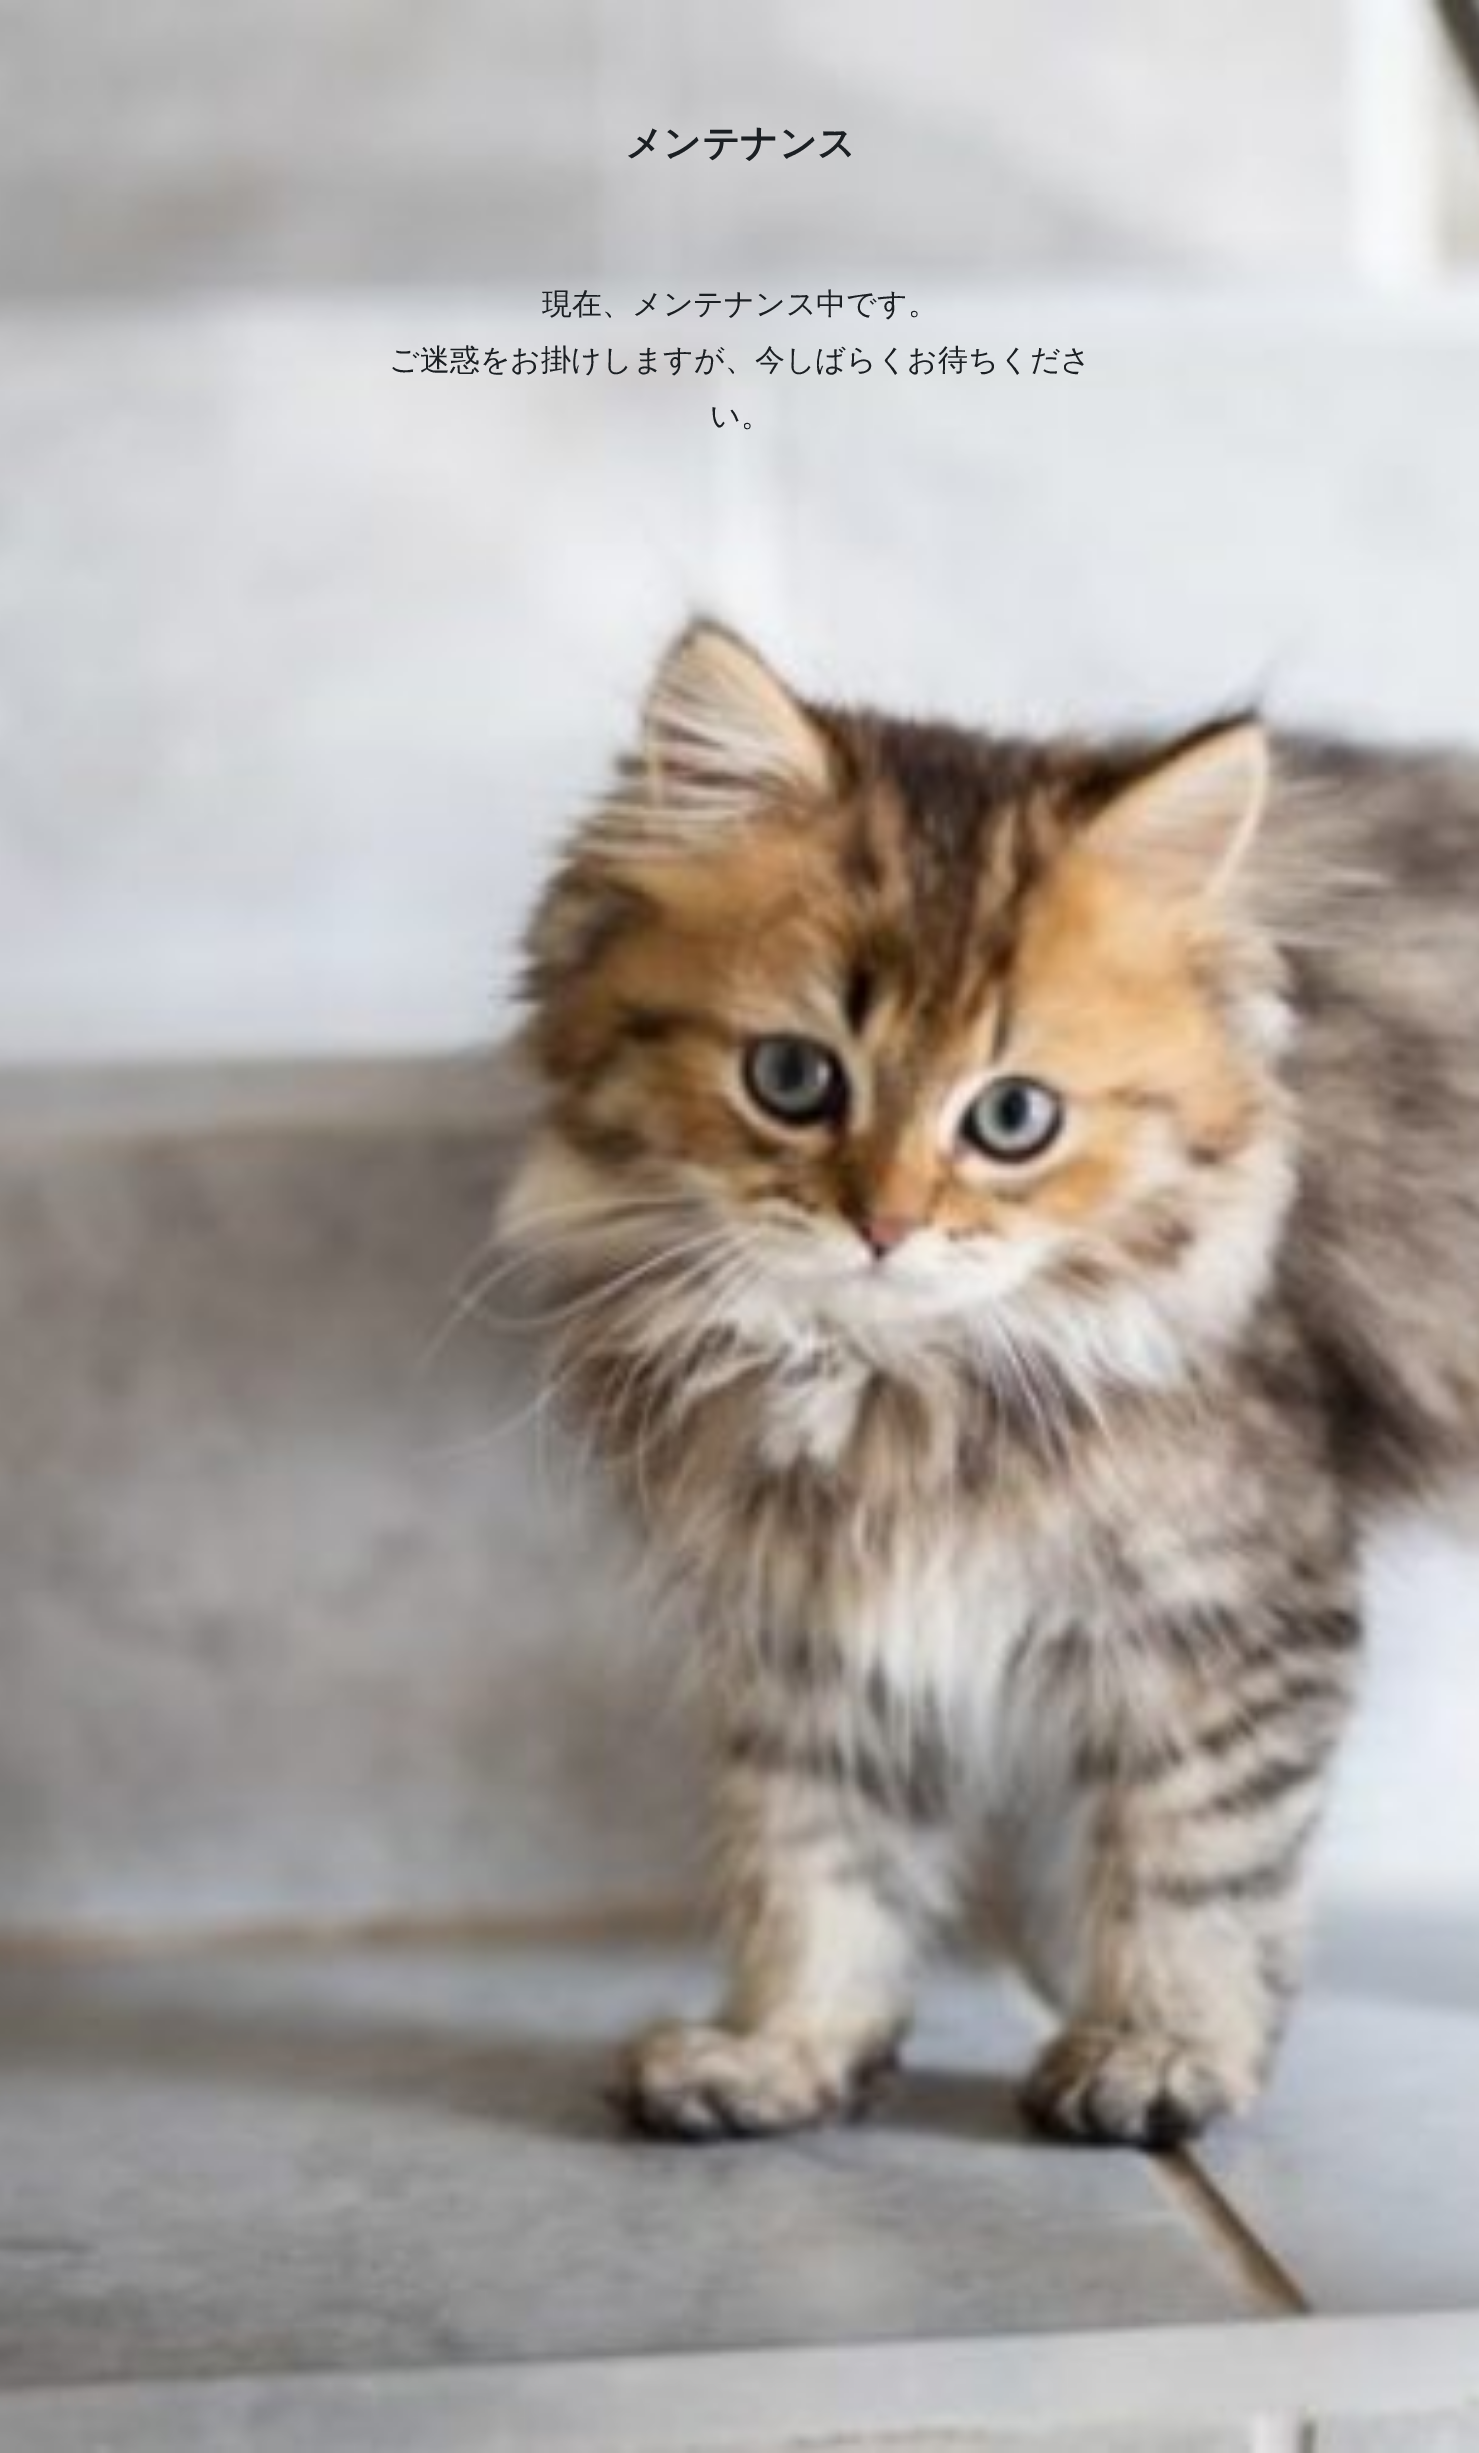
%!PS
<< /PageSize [1479 2453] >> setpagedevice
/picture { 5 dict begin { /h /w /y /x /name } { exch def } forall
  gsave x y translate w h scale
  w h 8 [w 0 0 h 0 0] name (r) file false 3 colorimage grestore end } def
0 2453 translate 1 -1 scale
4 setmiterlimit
1 setgray
0 0 1479 2453 rectfill
(img1.rgb) 0 0 1479 2453 picture
/WenQuanYiZenHei-Bold [37.5 0 0 -37.5 0 0] selectfont
0.106 0.122 0.137 setrgbcolor
625 156 moveto (メンテナンス) show
/WenQuanYiZenHei-Medium [30 0 0 -30 0 0] selectfont
542 314 moveto (現在、メンテナンス中です。) show
389 370 moveto (ご迷惑をお掛けしますが、今しばらくお待ちくださ) show
710 426 moveto (い。) show
showpage
